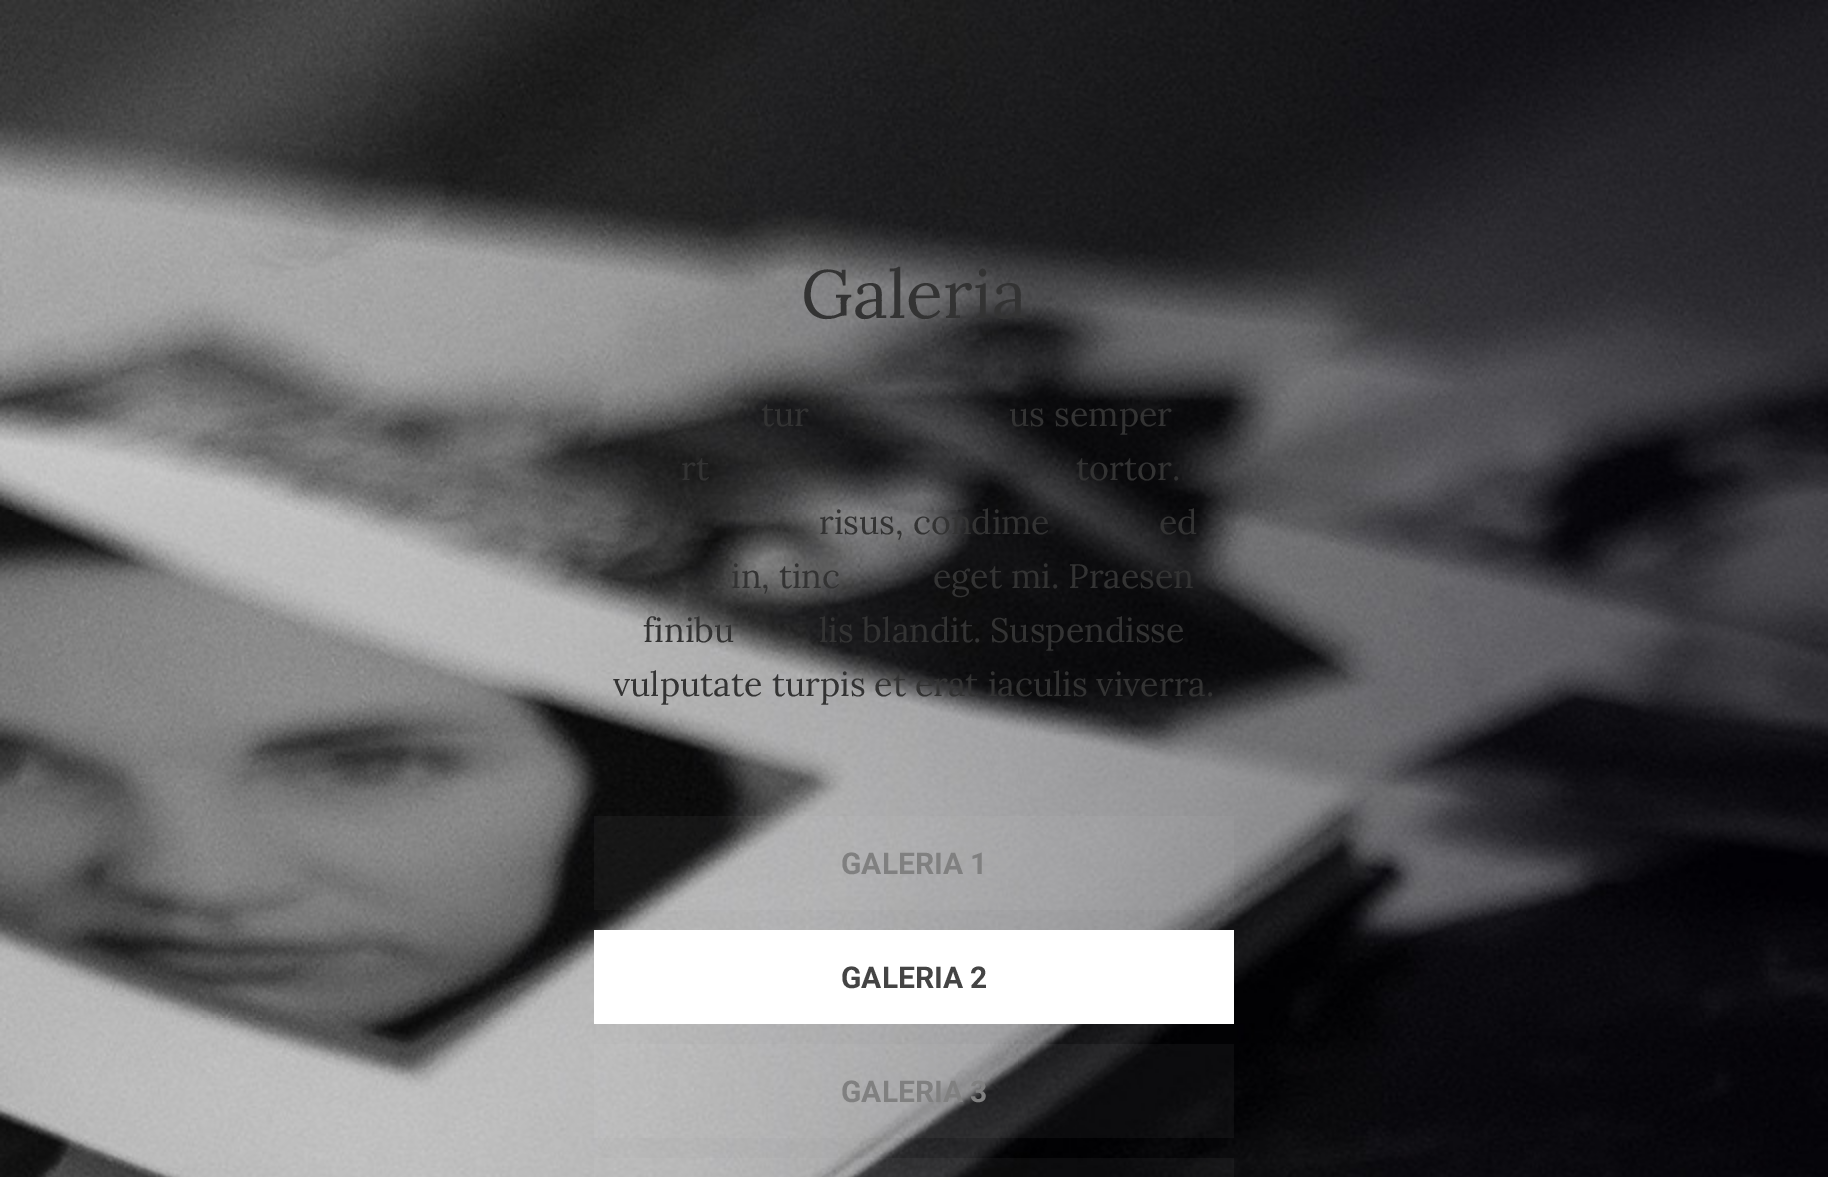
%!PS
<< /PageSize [1828 1177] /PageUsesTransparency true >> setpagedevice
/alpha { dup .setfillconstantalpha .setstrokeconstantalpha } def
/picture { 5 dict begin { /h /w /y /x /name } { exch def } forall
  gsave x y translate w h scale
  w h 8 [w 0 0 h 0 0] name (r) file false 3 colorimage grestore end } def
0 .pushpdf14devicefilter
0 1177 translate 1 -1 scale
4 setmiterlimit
1 setgray
0 0 1828 1177 rectfill
(img1.rgb) 0 0 1828 1177 picture
/Lora-Regular [68 0 0 -68 0 0] selectfont
0.2 setgray
801 318 moveto (Galeria) show
/Lora-Regular [34 0 0 -34 0 0] selectfont
761 426 moveto (tur) show
1009 426 moveto (us semper) show
681 480 moveto (rt) show
1076 480 moveto (tortor.) show
819 534 moveto (risus, condime) show
1159 534 moveto (ed) show
731 588 moveto (in, tinc) show
933 588 moveto (eget mi. Praesen) show
643 642 moveto (finibu) show
819 642 moveto (lis blandit. Suspendisse) show
613 696 moveto (vulputate turpis et erat iaculis viverra.) show
0.04 alpha
1 setgray
594 816 640 94 rectfill
/Roboto-Bold [30 0 0 -30 0 0] selectfont
1 alpha
0.502 setgray
841 874 moveto (GALERIA 1) show
1 setgray
594 930 640 94 rectfill
0.267 setgray
841 988 moveto (GALERIA 2) show
0.04 alpha
1 setgray
594 1044 640 94 rectfill
1 alpha
0.502 setgray
841 1102 moveto (GALERIA 3) show
0.04 alpha
1 setgray
594 1158 640 19 rectfill
.poppdf14devicefilter showpage
